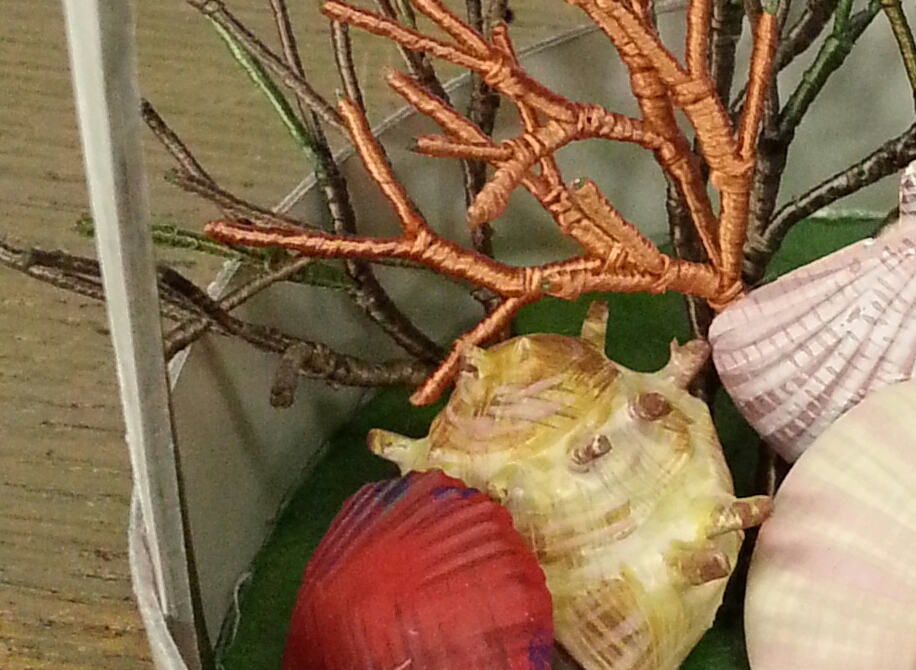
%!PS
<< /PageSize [916 670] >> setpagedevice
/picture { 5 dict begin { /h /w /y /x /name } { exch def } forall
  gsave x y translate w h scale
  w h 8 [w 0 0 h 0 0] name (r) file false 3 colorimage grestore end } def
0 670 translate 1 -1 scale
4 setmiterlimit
1 setgray
0 0 916 670 rectfill
(img1.rgb) 0 0 916 670 picture
showpage
